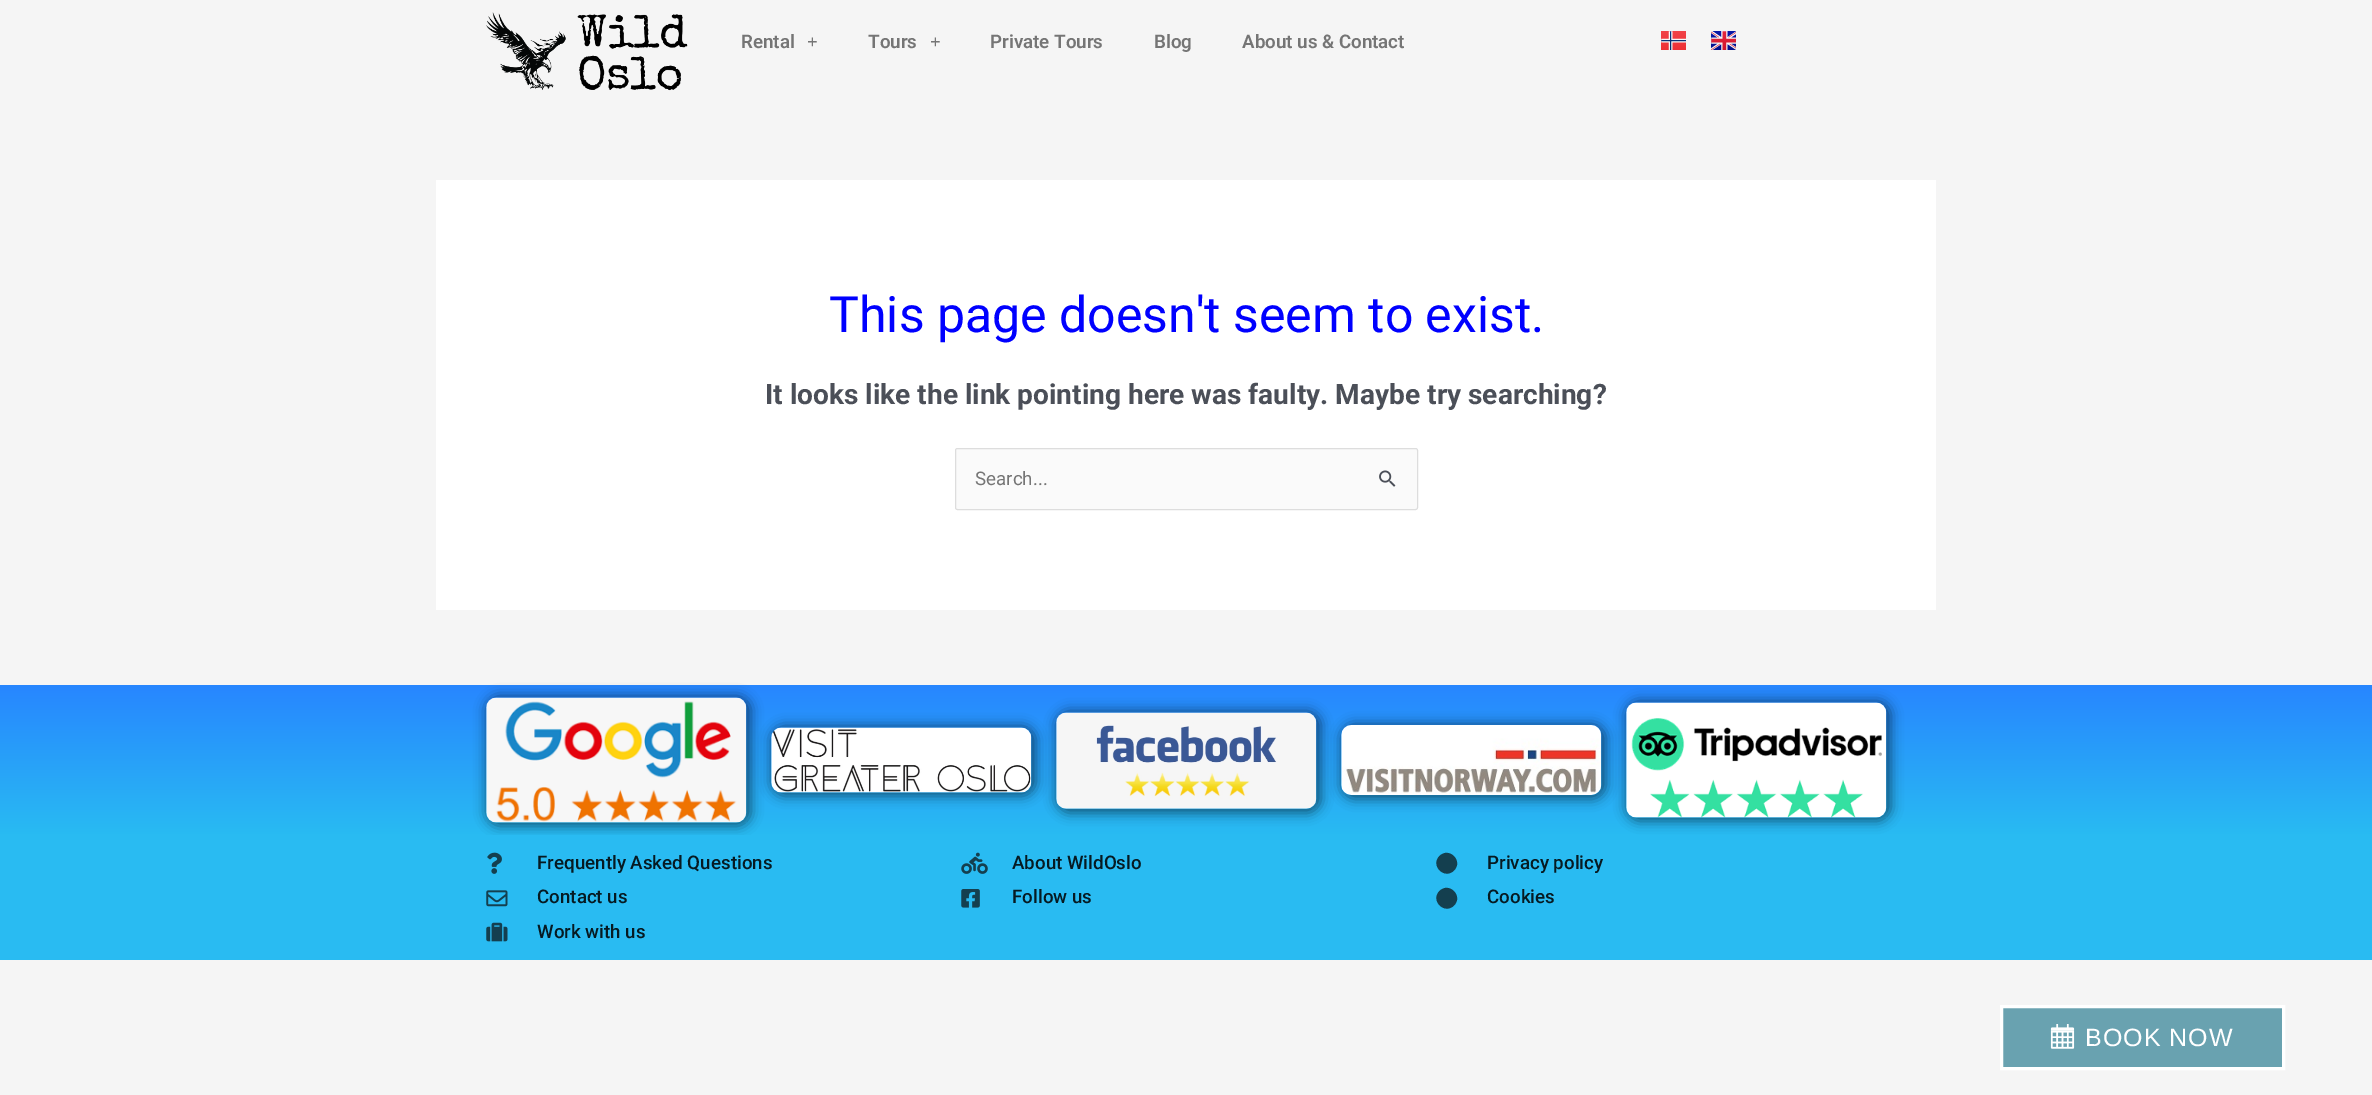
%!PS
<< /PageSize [2372 1095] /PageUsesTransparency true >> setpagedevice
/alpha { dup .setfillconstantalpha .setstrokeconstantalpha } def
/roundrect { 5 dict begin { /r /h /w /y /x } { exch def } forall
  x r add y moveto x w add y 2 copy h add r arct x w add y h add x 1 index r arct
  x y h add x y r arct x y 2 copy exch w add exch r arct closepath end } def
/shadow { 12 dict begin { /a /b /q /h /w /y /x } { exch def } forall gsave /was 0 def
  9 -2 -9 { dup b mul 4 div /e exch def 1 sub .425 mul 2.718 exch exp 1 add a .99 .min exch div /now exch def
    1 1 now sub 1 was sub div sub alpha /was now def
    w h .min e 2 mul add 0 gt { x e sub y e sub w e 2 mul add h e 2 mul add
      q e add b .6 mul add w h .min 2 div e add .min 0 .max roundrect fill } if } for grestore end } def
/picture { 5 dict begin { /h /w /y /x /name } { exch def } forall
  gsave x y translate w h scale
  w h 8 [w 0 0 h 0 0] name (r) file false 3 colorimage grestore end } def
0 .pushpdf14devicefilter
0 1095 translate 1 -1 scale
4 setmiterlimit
0.961 setgray
0 0 2372 1095 rectfill
(img1.rgb) 486 12 202 79 picture
/Roboto-SemiBold [18.75 0 0 -18.75 0 0] selectfont
0.459 setgray
741 48 moveto (Rental) show
/LiberationSerif-Bold [18.75 0 0 -18.75 0 0] selectfont
807 48 moveto (+) show
/Roboto-SemiBold [18.75 0 0 -18.75 0 0] selectfont
868 48 moveto (Tours) show
/LiberationSerif-Bold [18.75 0 0 -18.75 0 0] selectfont
930 48 moveto (+) show
/Roboto-SemiBold [18.75 0 0 -18.75 0 0] selectfont
990 48 moveto (Private Tours) show
1154 48 moveto (Blog) show
1242 48 moveto (About us & Contact) show
(img2.rgb) 1661 31 25 19 picture
(img3.rgb) 1711 31 25 19 picture
1 setgray
436 180 1500 430 rectfill
/Roboto-Regular [50 0 0 -50 0 0] selectfont
0 0 1 setrgbcolor
829 332 moveto (This page doesn't seem to exist.) show
/Roboto-Bold [28.1 0 0 -28.1 0 0] selectfont
0.294 0.31 0.345 setrgbcolor
765 404 moveto (It looks like the link pointing here was faulty. Maybe try searching?) show
0.98 setgray
955.5 448.5 462 61 2 roundrect gsave fill grestore
0.867 setgray
stroke
/Roboto-Regular [18.75 0 0 -18.75 0 0] selectfont
0.459 setgray
975 485 moveto (Search...) show
(img4.rgb) 1379 470 17 17 picture
gsave newpath 0 685 moveto 2372 685 lineto 2372 835 lineto 0 835 lineto closepath clip newpath
<< /ShadingType 2 /ColorSpace /DeviceRGB /Coords [1186 685 1186 835] /Extend [true true] /Function << /FunctionType 2 /Domain [0 1] /C0 [0.153 0.525 1] /C1 [0.161 0.733 0.949] /N 1 >> >> shfill grestore
0 setgray
486 696 265 130 13 6 0.5 shadow
(img5.rgb) 486 697 261 126 picture
771 726 265 70 13 6 0.5 shadow
(img6.rgb) 771 727 261 66 picture
1056 711 265 102 13 6 0.5 shadow
(img7.rgb) 1056 712 261 97 picture
1341 724 265 75 13 6 0.5 shadow
(img8.rgb) 1341 725 261 70 picture
1626 701 265 120 13 6 0.5 shadow
(img9.rgb) 1626 702 261 116 picture
0.161 0.733 0.949 setrgbcolor
0 835 2372 125 rectfill
(img10.rgb) 487 852 15 22 picture
/Roboto-Medium [18.75 0 0 -18.75 0 0] selectfont
0.024 0.102 0.133 setrgbcolor
537 869 moveto (Frequently Asked Questions) show
(img11.rgb) 486 890 22 17 picture
537 903 moveto (Contact us) show
(img12.rgb) 486 922 22 20 picture
537 938 moveto (Work with us) show
(img13.rgb) 961 852 27 22 picture
1012 869 moveto (About WildOslo) show
(img14.rgb) 961 889 19 19 picture
1012 903 moveto (Follow us) show
0.078 0.247 0.31 setrgbcolor
newpath 1439.5 856 moveto 1449 846.5 1463.5 861 1454 870.5 curveto 1444.5 880 1430 865.5 1439.5 856 curveto closepath fill
0.024 0.102 0.133 setrgbcolor
1487 869 moveto (Privacy policy) show
0.078 0.247 0.31 setrgbcolor
newpath 1439.5 891 moveto 1449 881.5 1463.5 896 1454 905.5 curveto 1444.5 915 1430 900.5 1439.5 891 curveto closepath fill
0.024 0.102 0.133 setrgbcolor
1487 903 moveto (Cookies) show
0.412 0.635 0.69 setrgbcolor
newpath 2001.5 1006.5 moveto 2283.5 1006.5 lineto 2283.5 1068.5 lineto 2001.5 1068.5 lineto closepath gsave fill grestore
1 setgray
3 setlinewidth
stroke
(img15.rgb) 2050 1024 25 25 picture
/LiberationSans-Regular [25 0 0 -25 0 0] selectfont
2085 1046 moveto 1 0 (BOOK NOW) ashow
.poppdf14devicefilter showpage
